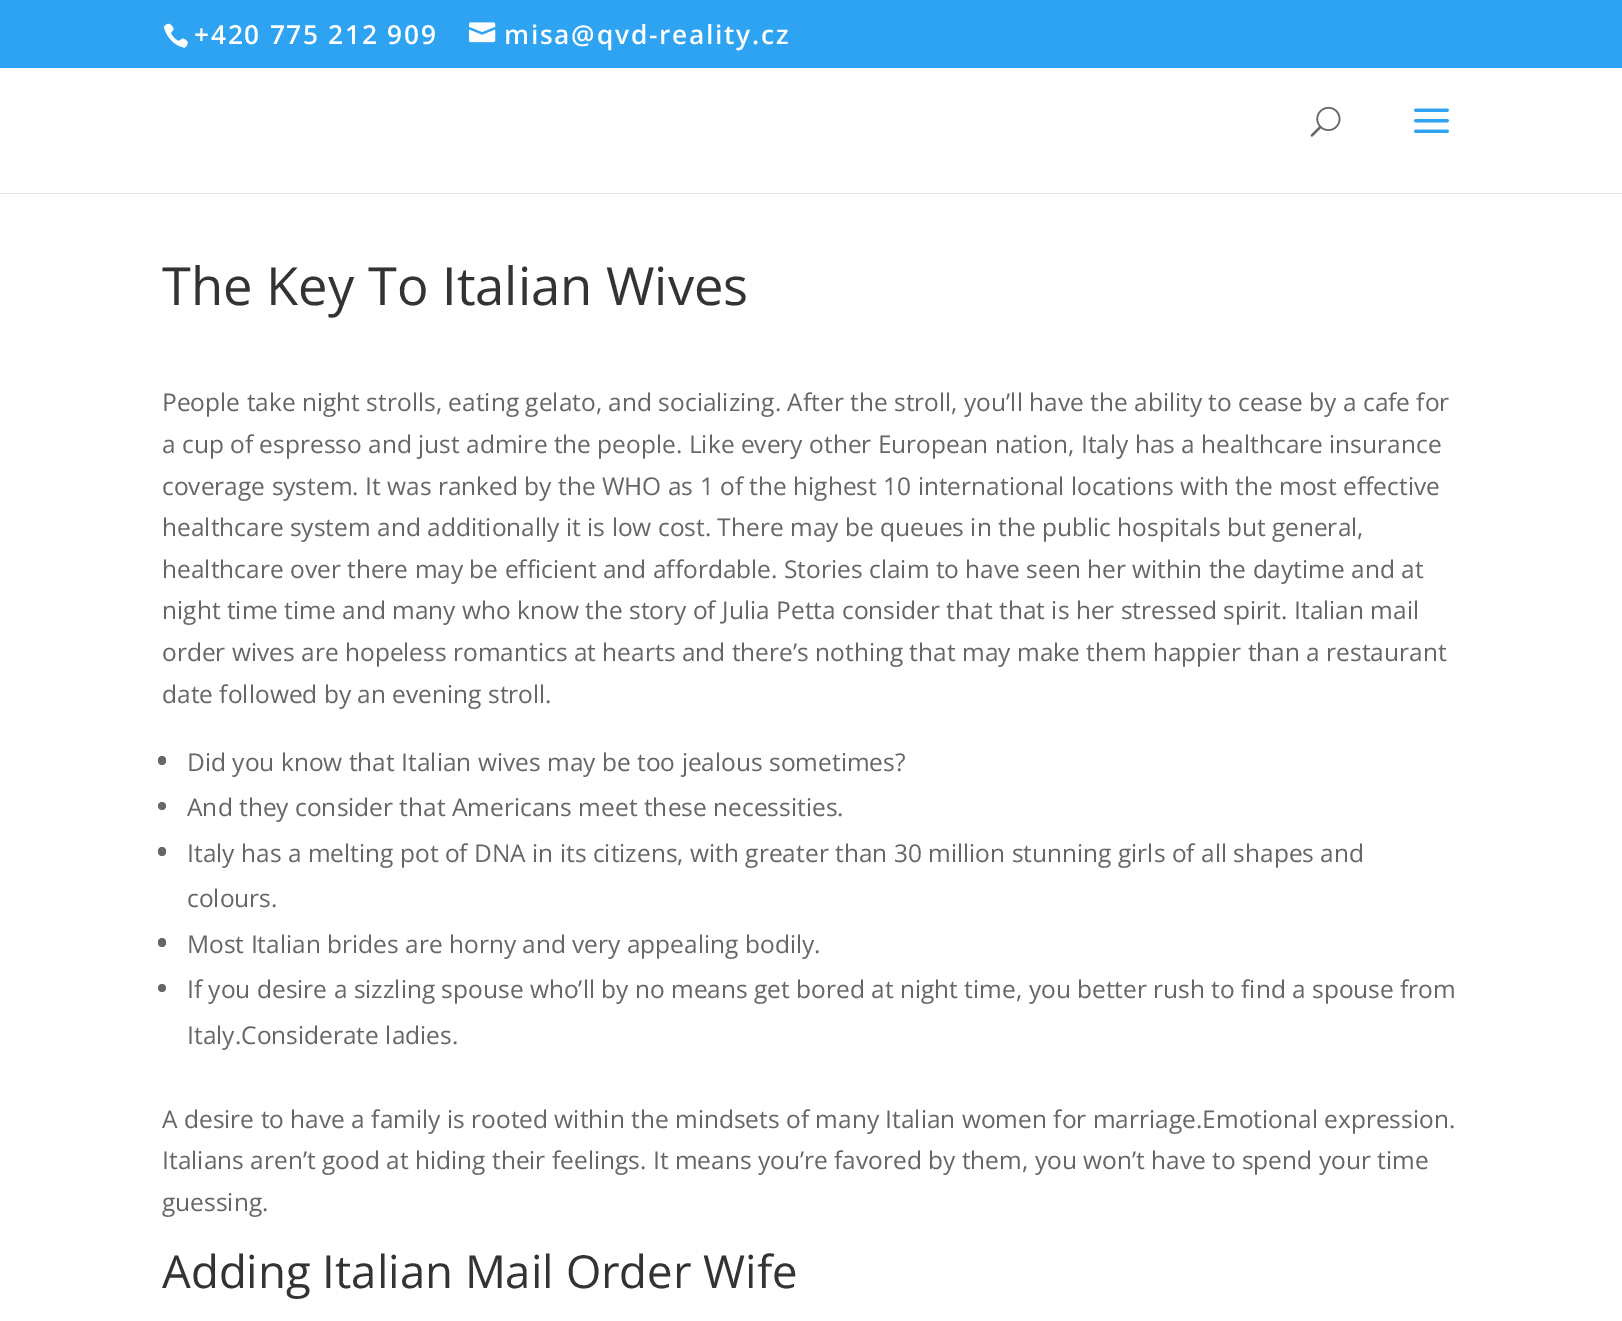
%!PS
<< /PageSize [1622 1321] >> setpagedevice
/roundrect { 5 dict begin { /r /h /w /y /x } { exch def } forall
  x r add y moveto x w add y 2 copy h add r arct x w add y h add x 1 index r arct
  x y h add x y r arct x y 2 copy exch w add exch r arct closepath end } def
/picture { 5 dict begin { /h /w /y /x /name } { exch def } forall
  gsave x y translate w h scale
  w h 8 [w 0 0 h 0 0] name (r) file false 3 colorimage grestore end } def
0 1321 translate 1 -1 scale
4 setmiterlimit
1 setgray
0 0 1622 1321 rectfill
0.18 0.639 0.949 setrgbcolor
0 0 1622 68 rectfill
(img1.rgb) 163 23 25 25 picture
/OpenSans-SemiBold [26.25 0 0 -26.25 0 0] selectfont
1 setgray
194 44 moveto 1.75 0 (+420 775 212 909) ashow
(img2.rgb) 469 22 27 21 picture
504 44 moveto 1.75 0 (misa@qvd-reality.cz) ashow
0.902 setgray
0 193 1622 1 rectfill
(img3.rgb) 1310 106 31 31 picture
(img4.rgb) 1414 108 35 25 picture
/OpenSans-Regular [52.5 0 0 -52.5 0 0] selectfont
0.2 setgray
162 305 moveto (The Key To Italian Wives) show
/OpenSans-Regular [24.5 0 0 -24.5 0 0] selectfont
0.4 setgray
162 411 moveto (People take night strolls, eating gelato, and socializing. After the stroll, you’ll have the ability to cease by a cafe for) show
162 453 moveto (a cup of espresso and just admire the people. Like every other European nation, Italy has a healthcare insurance) show
162 495 moveto (coverage system. It was ranked by the WHO as 1 of the highest 10 international locations with the most effective) show
162 536 moveto (healthcare system and additionally it is low cost. There may be queues in the public hospitals but general,) show
162 578 moveto (healthcare over there may be efficient and affordable. Stories claim to have seen her within the daytime and at) show
162 619 moveto (night time time and many who know the story of Julia Petta consider that that is her stressed spirit. Italian mail) show
162 661 moveto (order wives are hopeless romantics at hearts and there’s nothing that may make them happier than a restaurant) show
162 703 moveto (date followed by an evening stroll.) show
158 756 8 9 4 roundrect fill
187 771 moveto (Did you know that Italian wives may be too jealous sometimes?) show
newpath 162 806 4 0 360 arc closepath fill
187 816 moveto (And they consider that Americans meet these necessities.) show
158 847 8 9 4 roundrect fill
187 862 moveto (Italy has a melting pot of DNA in its citizens, with greater than 30 million stunning girls of all shapes and) show
187 907 moveto (colours.) show
158 938 8 9 4 roundrect fill
187 953 moveto (Most Italian brides are horny and very appealing bodily.) show
newpath 162 988 4 0 360 arc closepath fill
187 998 moveto (If you desire a sizzling spouse who’ll by no means get bored at night time, you better rush to find a spouse from) show
187 1044 moveto (Italy.Considerate ladies.) show
162 1128 moveto (A desire to have a family is rooted within the mindsets of many Italian women for marriage.Emotional expression.) show
162 1169 moveto (Italians aren’t good at hiding their feelings. It means you’re favored by them, you won’t have to spend your time) show
162 1211 moveto (guessing.) show
/OpenSans-Regular [45.5 0 0 -45.5 0 0] selectfont
0.2 setgray
162 1288 moveto (Adding Italian Mail Order Wife) show
showpage
